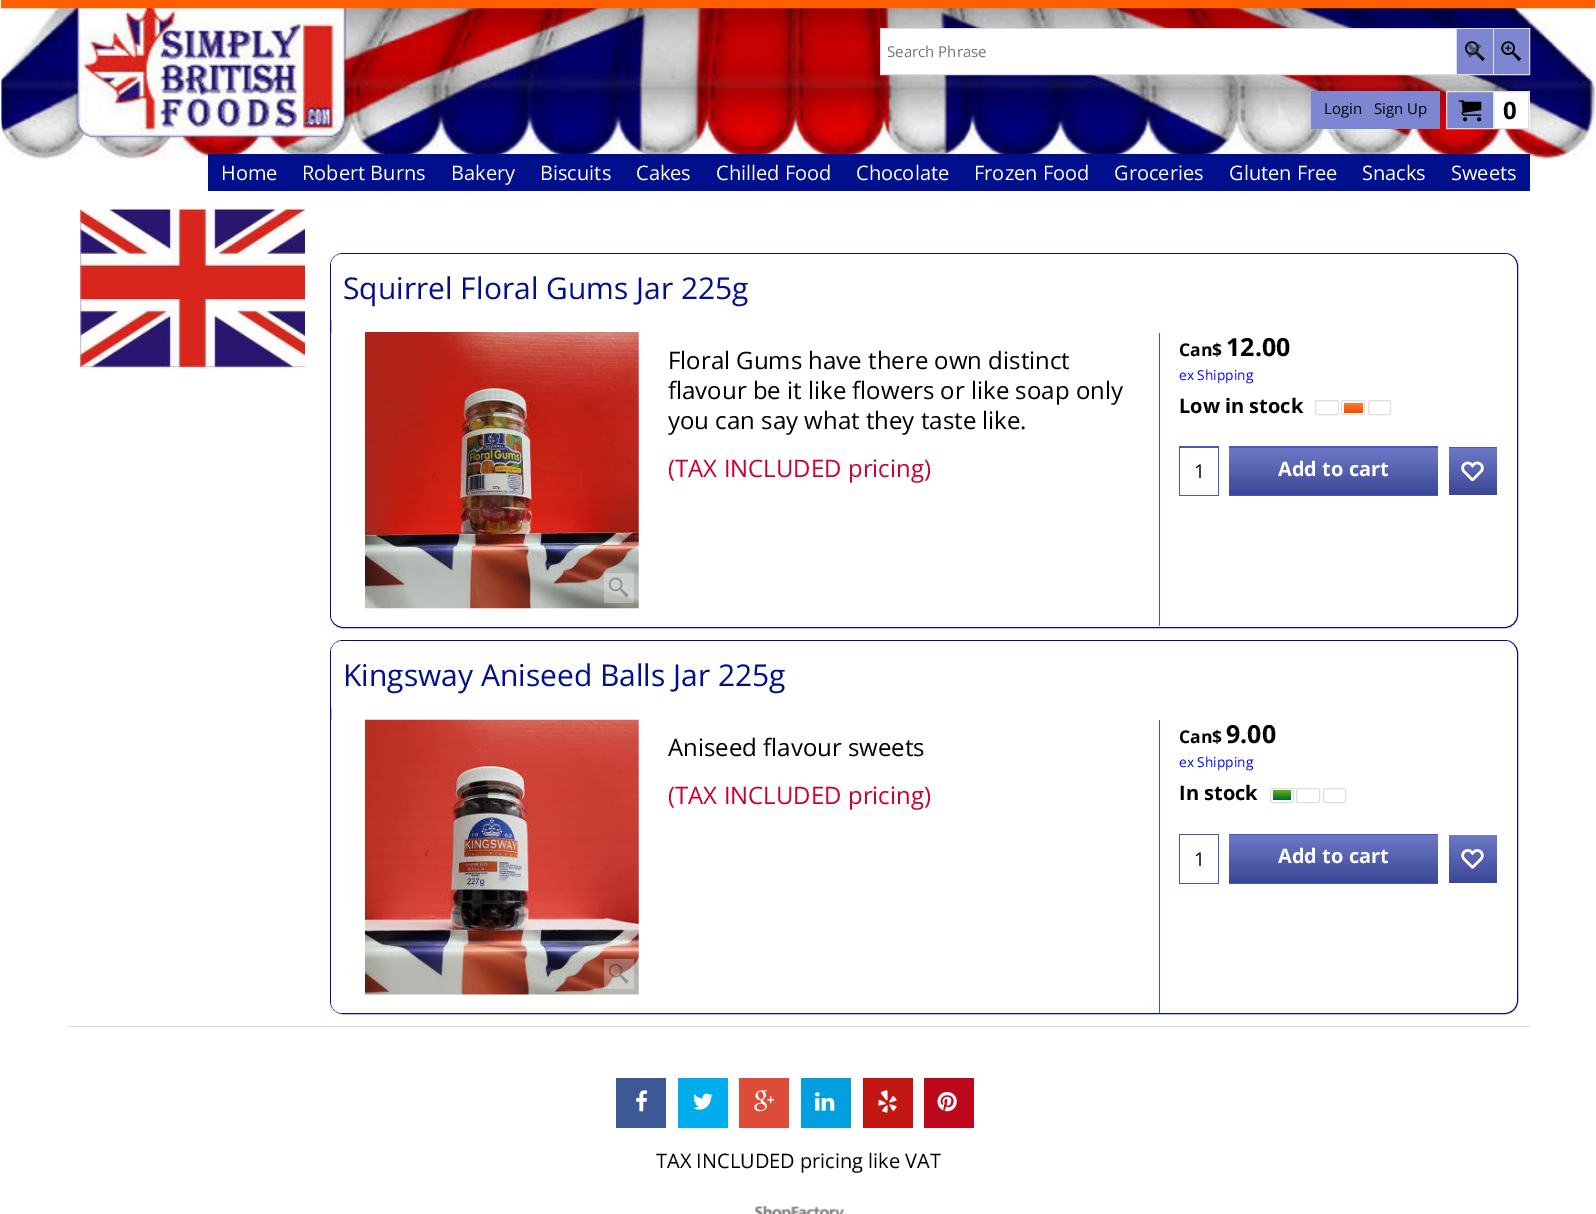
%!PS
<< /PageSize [1596 1214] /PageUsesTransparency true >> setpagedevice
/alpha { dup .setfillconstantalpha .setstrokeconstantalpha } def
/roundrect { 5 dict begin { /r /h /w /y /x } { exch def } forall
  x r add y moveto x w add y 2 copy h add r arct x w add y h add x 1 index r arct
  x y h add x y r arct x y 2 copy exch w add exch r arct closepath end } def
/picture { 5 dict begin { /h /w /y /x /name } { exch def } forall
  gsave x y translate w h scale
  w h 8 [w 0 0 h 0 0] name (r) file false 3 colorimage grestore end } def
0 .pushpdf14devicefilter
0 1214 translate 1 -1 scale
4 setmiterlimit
1 setgray
0 0 1596 1214 rectfill
1 0.373 0 setrgbcolor
1 0 1594 9 rectfill
(img1.rgb) 1 8 1594 152 picture
0.871 setgray
880.5 28.5 649 46 rectstroke
0.49 0.529 0.82 setrgbcolor
1457 29 36 45 rectfill
0.871 setgray
1456 29 1 45 rectfill
(img2.rgb) 1465 41 20 21 picture
0.49 0.529 0.82 setrgbcolor
1494 29 35 45 rectfill
0.871 setgray
1493 29 1 45 rectfill
(img3.rgb) 1501 41 21 21 picture
1 setgray
881 29 575 45 rectfill
gsave
888 41 537 22 rectclip
/OpenSans-Regular [15 0 0 -15 0 0] selectfont
0.459 setgray
887 57 moveto (Search Phrase) show
grestore
(img4.rgb) 1467 44 15 14 picture
0.49 0.529 0.82 setrgbcolor
1311 91 129 38 rectfill
/OpenSans-Regular [15 0 0 -15 0 0] selectfont
0 setgray
1324 114 moveto (Login) show
1374 114 moveto (Sign Up) show
1 setgray
1494 91 36 38 rectfill
0.49 0.529 0.82 setrgbcolor
newpath 1446.5 91.5 moveto 1493.5 91.5 lineto 1493.5 128.5 lineto 1446.5 128.5 lineto closepath gsave fill grestore
0.871 setgray
stroke
(img5.rgb) 1458 100 24 22 picture
1493.5 91.5 35 37 rectstroke
/OpenSans-Bold [24 0 0 -24 0 0] selectfont
0 setgray
1503 119 moveto (0) show
0 0.063 0.553 setrgbcolor
208 154 1322 37 rectfill
/OpenSans-Regular [20 0 0 -20 0 0] selectfont
1 setgray
221 180 moveto (Home) show
302 180 moveto (Robert Burns) show
451 180 moveto (Bakery) show
540 180 moveto (Biscuits) show
636 180 moveto (Cakes) show
716 180 moveto (Chilled Food) show
856 180 moveto (Chocolate) show
974 180 moveto (Frozen Food) show
1114 180 moveto (Groceries) show
1229 180 moveto (Gluten Free) show
1362 180 moveto (Snacks) show
1451 180 moveto (Sweets) show
(img6.rgb) 80 209 225 161 picture
0 0.063 0.553 setrgbcolor
330.5 253.5 1187 374 12.5 roundrect stroke
1 setgray
newpath 342 254 moveto 1505 254 lineto 1511 254 1516 259 1516 265 curveto 1516 320 lineto 331 320 lineto 331 265 lineto 331 259 336 254 342 254 curveto closepath fill
/OpenSans-Regular [30 0 0 -30 0 0] selectfont
0 0.063 0.553 setrgbcolor
343 299 moveto (Squirrel Floral Gums Jar 225g) show
1 setgray
newpath 331 333 moveto 1159 333 lineto 1159 626 lineto 342 626 lineto 336 626 331 621 331 615 curveto closepath fill
0.29 0.341 0.729 setrgbcolor
1159 333 1 293 rectfill
(img7.rgb) 365 332 274 277 picture
0.3 alpha
1 setgray
604 573 30 30 rectfill
1 alpha
(img8.rgb) 608 577 21 21 picture
/OpenSans-Regular [24 0 0 -24 0 0] selectfont
0 setgray
668 369 moveto (Floral Gums have there own distinct) show
668 399 moveto (flavour be it like flowers or like soap only) show
668 429 moveto (you can say what they taste like.) show
0.8 0 0.2 setrgbcolor
668 477 moveto (\(TAX INCLUDED pricing\)) show
/OpenSans-Bold [17.5 0 0 -17.5 0 0] selectfont
0 setgray
1179 356 moveto (Can$) show
/OpenSans-Bold [25 0 0 -25 0 0] selectfont
1226 356 moveto (12.00) show
/OpenSans-Regular [13.75 0 0 -13.75 0 0] selectfont
0 0 1 setrgbcolor
1179 380 moveto (ex Shipping) show
/OpenSans-Bold [20 0 0 -20 0 0] selectfont
0 setgray
1179 413 moveto (Low in stock) show
0.871 setgray
1315.5 400.5 23 14 2 roundrect stroke
1341.5 400.5 23 14 2 roundrect stroke
gsave 1344 403 19 10 2.5 roundrect clip newpath
<< /ShadingType 2 /ColorSpace /DeviceRGB /Coords [1344 403 1344 413] /Extend [true true] /Function << /FunctionType 2 /Domain [0 1] /C0 [1 0.467 0.2] /C1 [0.929 0.31 0] /N 1 >> >> shfill grestore
1368.5 400.5 22 14 2 roundrect stroke
0.29 0.341 0.729 setrgbcolor
1179 446 40 50 rectfill
1 setgray
1180 448 38 47 rectfill
/OpenSans-Regular [19 0 0 -19 0 0] selectfont
0 setgray
1194 478 moveto (1) show
0.29 0.341 0.729 setrgbcolor
1229 446 209 50 rectfill
gsave newpath 1229 448 moveto 1438 448 lineto 1438 495 lineto 1229 495 lineto closepath clip newpath
<< /ShadingType 2 /ColorSpace /DeviceRGB /Coords [1230 448 1230 495] /Extend [true true] /Function << /FunctionType 2 /Domain [0 1] /C0 [0.431 0.475 0.784] /C1 [0.231 0.275 0.584] /N 1 >> >> shfill grestore
/OpenSans-Bold [20 0 0 -20 0 0] selectfont
1 setgray
1278 476 moveto (Add to cart) show
0.29 0.341 0.729 setrgbcolor
1449 447 48 1 rectfill
gsave newpath 1449 448 moveto 1497 448 lineto 1497 495 lineto 1449 495 lineto closepath clip newpath
<< /ShadingType 2 /ColorSpace /DeviceRGB /Coords [1449 448 1449 495] /Extend [true true] /Function << /FunctionType 2 /Domain [0 1] /C0 [0.431 0.475 0.784] /C1 [0.231 0.275 0.584] /N 1 >> >> shfill grestore
(img9.rgb) 1461 461 23 21 picture
0 0.063 0.553 setrgbcolor
330.5 640.5 1187 373 12.5 roundrect stroke
1 setgray
newpath 342 641 moveto 1505 641 lineto 1511 641 1516 646 1516 652 curveto 1516 708 lineto 331 708 lineto 331 652 lineto 331 646 336 641 342 641 curveto closepath fill
/OpenSans-Regular [30 0 0 -30 0 0] selectfont
0 0.063 0.553 setrgbcolor
343 686 moveto (Kingsway Aniseed Balls Jar 225g) show
1 setgray
newpath 331 720 moveto 1159 720 lineto 1159 1013 lineto 342 1013 lineto 336 1013 331 1008 331 1002 curveto closepath fill
0.29 0.341 0.729 setrgbcolor
1159 720 1 293 rectfill
(img10.rgb) 365 719 274 276 picture
0.3 alpha
1 setgray
604 959 30 30 rectfill
1 alpha
(img11.rgb) 608 963 21 21 picture
/OpenSans-Regular [24 0 0 -24 0 0] selectfont
0 setgray
668 756 moveto (Aniseed flavour sweets) show
0.8 0 0.2 setrgbcolor
668 804 moveto (\(TAX INCLUDED pricing\)) show
/OpenSans-Bold [17.5 0 0 -17.5 0 0] selectfont
0 setgray
1179 743 moveto (Can$) show
/OpenSans-Bold [25 0 0 -25 0 0] selectfont
1226 743 moveto (9.00) show
/OpenSans-Regular [13.75 0 0 -13.75 0 0] selectfont
0 0 1 setrgbcolor
1179 767 moveto (ex Shipping) show
/OpenSans-Bold [20 0 0 -20 0 0] selectfont
0 setgray
1179 800 moveto (In stock) show
0.871 setgray
1270.5 788.5 23 14 2 roundrect stroke
gsave 1273 790 18 10 2.5 roundrect clip newpath
<< /ShadingType 2 /ColorSpace /DeviceRGB /Coords [1273 790 1273 800] /Extend [true true] /Function << /FunctionType 2 /Domain [0 1] /C0 [0.396 0.69 0.059] /C1 [0 0.408 0.216] /N 1 >> >> shfill grestore
1296.5 788.5 23 14 2 roundrect stroke
1323.5 788.5 22 14 2 roundrect stroke
0.29 0.341 0.729 setrgbcolor
1179 834 40 50 rectfill
1 setgray
1180 835 38 48 rectfill
/OpenSans-Regular [19 0 0 -19 0 0] selectfont
0 setgray
1194 866 moveto (1) show
0.29 0.341 0.729 setrgbcolor
1229 834 209 50 rectfill
gsave newpath 1229 835 moveto 1438 835 lineto 1438 883 lineto 1229 883 lineto closepath clip newpath
<< /ShadingType 2 /ColorSpace /DeviceRGB /Coords [1230 835 1230 883] /Extend [true true] /Function << /FunctionType 2 /Domain [0 1] /C0 [0.431 0.475 0.784] /C1 [0.231 0.275 0.584] /N 1 >> >> shfill grestore
/OpenSans-Bold [20 0 0 -20 0 0] selectfont
1 setgray
1278 863 moveto (Add to cart) show
gsave newpath 1449 835 moveto 1497 835 lineto 1497 883 lineto 1449 883 lineto closepath clip newpath
<< /ShadingType 2 /ColorSpace /DeviceRGB /Coords [1449 835 1449 883] /Extend [true true] /Function << /FunctionType 2 /Domain [0 1] /C0 [0.431 0.475 0.784] /C1 [0.231 0.275 0.584] /N 1 >> >> shfill grestore
(img12.rgb) 1461 849 23 20 picture
0.871 setgray
68 1026 1462 1 rectfill
0.235 0.345 0.592 setrgbcolor
616 1078 50 50 rectfill
(img13.rgb) 636 1090 12 22 picture
0 0.678 0.925 setrgbcolor
678 1078 50 50 rectfill
(img14.rgb) 693 1093 20 17 picture
0.867 0.298 0.224 setrgbcolor
739 1078 50 50 rectfill
(img15.rgb) 754 1090 20 22 picture
0.004 0.624 0.878 setrgbcolor
801 1078 50 50 rectfill
(img16.rgb) 815 1092 20 19 picture
0.761 0.086 0.075 setrgbcolor
863 1078 50 50 rectfill
(img17.rgb) 878 1090 19 23 picture
0.741 0.031 0.11 setrgbcolor
924 1078 50 50 rectfill
(img18.rgb) 937 1092 20 20 picture
/OpenSans-Regular [20 0 0 -20 0 0] selectfont
0 setgray
656 1168 moveto (TAX INCLUDED pricing like VAT) show
(img19.rgb) 754 1206 90 8 picture
.poppdf14devicefilter showpage
